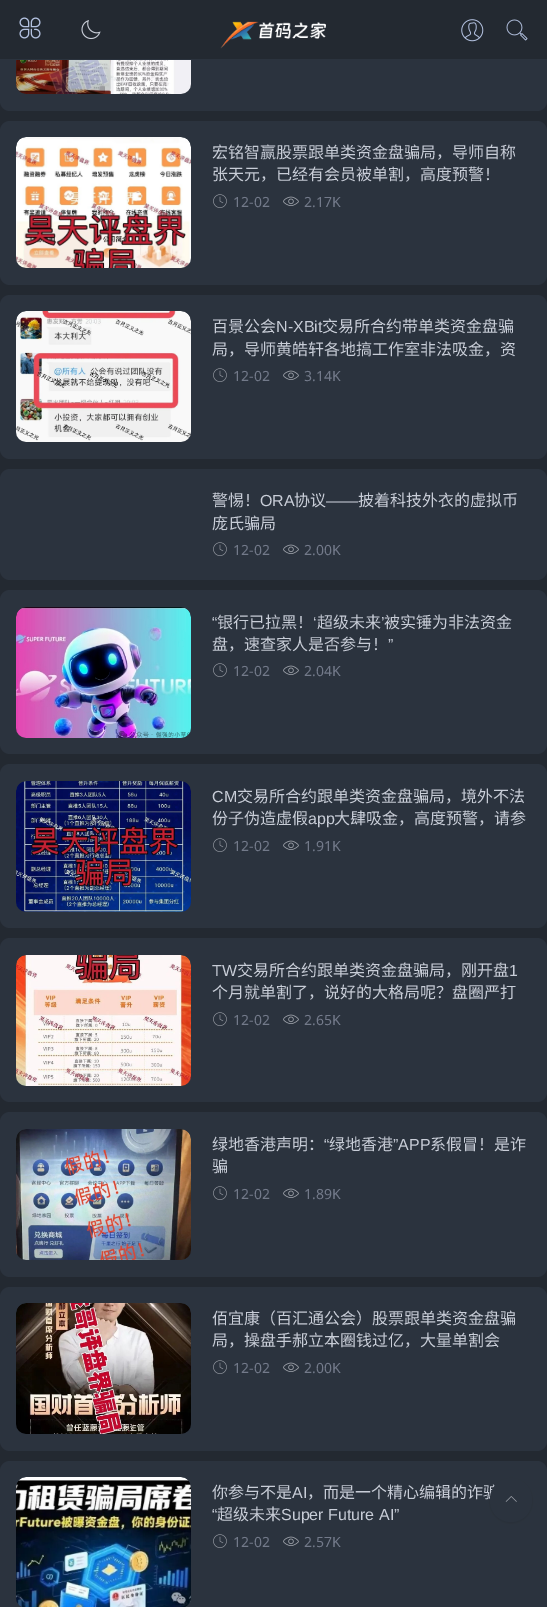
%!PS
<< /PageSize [547 1607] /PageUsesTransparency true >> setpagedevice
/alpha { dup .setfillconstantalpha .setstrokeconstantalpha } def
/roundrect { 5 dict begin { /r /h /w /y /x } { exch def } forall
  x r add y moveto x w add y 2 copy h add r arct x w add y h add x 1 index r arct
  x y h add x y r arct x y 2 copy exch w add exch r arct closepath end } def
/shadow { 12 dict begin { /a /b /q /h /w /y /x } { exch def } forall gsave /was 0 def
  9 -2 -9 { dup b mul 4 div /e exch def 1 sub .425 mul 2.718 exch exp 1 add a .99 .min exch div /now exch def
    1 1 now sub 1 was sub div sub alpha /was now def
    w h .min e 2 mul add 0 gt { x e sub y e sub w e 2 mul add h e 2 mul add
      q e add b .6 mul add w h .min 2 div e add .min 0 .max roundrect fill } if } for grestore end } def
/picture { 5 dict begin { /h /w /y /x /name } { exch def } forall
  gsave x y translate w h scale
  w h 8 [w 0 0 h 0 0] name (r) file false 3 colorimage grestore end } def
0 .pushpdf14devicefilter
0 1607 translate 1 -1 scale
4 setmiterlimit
0.137 0.161 0.192 setrgbcolor
0 0 547 1607 rectfill
0.169 0.2 0.243 setrgbcolor
0 -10 547 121 10 roundrect fill
0.137 0.161 0.192 setrgbcolor
0 0 547 59 rectfill
(img1.rgb) 19 17 22 22 picture
(img2.rgb) 81 20 20 20 picture
(img3.rgb) 220 21 106 28 picture
(img4.rgb) 461 19 23 23 picture
(img5.rgb) 506 19 22 22 picture
(img6.rgb) 16 60 175 34 picture
0.169 0.2 0.243 setrgbcolor
0 121 547 164 10 roundrect fill
(img7.rgb) 16 137 175 131 picture
/NotoSansCJKSC-Regular [16 0 0 -16 0 0] selectfont
0.784 0.804 0.843 setrgbcolor
212 158 moveto (宏铭智赢股票跟单类资金盘骗局，导师自称) show
212 180 moveto (张天元，已经有会员被单割，高度预警！) show
(img8.rgb) 213 194 14 14 picture
/NotoSans-Regular [14 0 0 -14 0 0] selectfont
0.451 0.478 0.541 setrgbcolor
233 207 moveto (12-02) show
(img9.rgb) 283 196 16 10 picture
304 207 moveto (2.17K) show
0.169 0.2 0.243 setrgbcolor
0 295 547 164 10 roundrect fill
(img10.rgb) 16 311 175 131 picture
/NotoSansCJKSC-Regular [16 0 0 -16 0 0] selectfont
0.784 0.804 0.843 setrgbcolor
212 332 moveto (百景公会) show
/LiberationSans-Regular [16 0 0 -16 0 0] selectfont
276 332 moveto (N-XBit) show
/NotoSansCJKSC-Regular [16 0 0 -16 0 0] selectfont
322 332 moveto (交易所合约带单类资金盘骗) show
212 355 moveto (局，导师黄皓轩各地搞工作室非法吸金，资) show
(img8.rgb) 213 368 14 14 picture
/NotoSans-Regular [14 0 0 -14 0 0] selectfont
0.451 0.478 0.541 setrgbcolor
233 381 moveto (12-02) show
(img9.rgb) 283 370 16 10 picture
304 381 moveto (3.14K) show
0.169 0.2 0.243 setrgbcolor
0 469 547 111 10 roundrect fill
/NotoSansCJKSC-Regular [16 0 0 -16 0 0] selectfont
0.784 0.804 0.843 setrgbcolor
212 506 moveto (警惕！) show
/LiberationSans-Regular [16 0 0 -16 0 0] selectfont
260 506 moveto (ORA) show
/NotoSansCJKSC-Regular [16 0 0 -16 0 0] selectfont
294 506 moveto (协议) show
/LiberationSans-Regular [16 0 0 -16 0 0] selectfont
326 506 moveto (——) show
/NotoSansCJKSC-Regular [16 0 0 -16 0 0] selectfont
358 506 moveto (披着科技外衣的虚拟币) show
212 529 moveto (庞氏骗局) show
(img8.rgb) 213 542 14 14 picture
/NotoSans-Regular [14 0 0 -14 0 0] selectfont
0.451 0.478 0.541 setrgbcolor
233 555 moveto (12-02) show
(img9.rgb) 283 544 16 10 picture
304 555 moveto (2.00K) show
0.169 0.2 0.243 setrgbcolor
0 590 547 164 10 roundrect fill
(img11.rgb) 16 607 175 131 picture
/LiberationSans-Regular [16 0 0 -16 0 0] selectfont
0.784 0.804 0.843 setrgbcolor
212 628 moveto (“) show
/NotoSansCJKSC-Regular [16 0 0 -16 0 0] selectfont
217 628 moveto (银行已拉黑！ 超级未来 被实锤为非法资金) show
/LiberationSans-Regular [16 0 0 -16 0 0] selectfont
313 628 moveto (‘) show
381 628 moveto (’) show
/NotoSansCJKSC-Regular [16 0 0 -16 0 0] selectfont
212 650 moveto (盘，速查家人是否参与！) show
/LiberationSans-Regular [16 0 0 -16 0 0] selectfont
388 650 moveto (”) show
(img8.rgb) 213 663 14 14 picture
/NotoSans-Regular [14 0 0 -14 0 0] selectfont
0.451 0.478 0.541 setrgbcolor
233 676 moveto (12-02) show
(img9.rgb) 283 665 16 10 picture
304 676 moveto (2.04K) show
0.169 0.2 0.243 setrgbcolor
0 764 547 164 10 roundrect fill
(img12.rgb) 16 781 175 131 picture
/LiberationSans-Regular [16 0 0 -16 0 0] selectfont
0.784 0.804 0.843 setrgbcolor
212 802 moveto (CM) show
/NotoSansCJKSC-Regular [16 0 0 -16 0 0] selectfont
237 802 moveto (交易所合约跟单类资金盘骗局，境外不法) show
212 824 moveto (份子伪造虚假) show
/LiberationSans-Regular [16 0 0 -16 0 0] selectfont
308 824 moveto (app) show
/NotoSansCJKSC-Regular [16 0 0 -16 0 0] selectfont
334 824 moveto (大肆吸金，高度预警，请参) show
(img8.rgb) 213 838 14 14 picture
/NotoSans-Regular [14 0 0 -14 0 0] selectfont
0.451 0.478 0.541 setrgbcolor
233 851 moveto (12-02) show
(img9.rgb) 283 840 16 10 picture
304 851 moveto (1.91K) show
0.169 0.2 0.243 setrgbcolor
0 938 547 164 10 roundrect fill
(img13.rgb) 16 955 175 131 picture
/LiberationSans-Regular [16 0 0 -16 0 0] selectfont
0.784 0.804 0.843 setrgbcolor
212 976 moveto (TW) show
/NotoSansCJKSC-Regular [16 0 0 -16 0 0] selectfont
237 976 moveto (交易所合约跟单类资金盘骗局，刚开盘) show
/LiberationSans-Regular [16 0 0 -16 0 0] selectfont
509 976 moveto (1) show
/NotoSansCJKSC-Regular [16 0 0 -16 0 0] selectfont
212 998 moveto (个月就单割了，说好的大格局呢？盘圈严打) show
(img8.rgb) 213 1012 14 14 picture
/NotoSans-Regular [14 0 0 -14 0 0] selectfont
0.451 0.478 0.541 setrgbcolor
233 1025 moveto (12-02) show
(img9.rgb) 283 1014 16 10 picture
304 1025 moveto (2.65K) show
0.169 0.2 0.243 setrgbcolor
0 1112 547 165 10 roundrect fill
(img14.rgb) 16 1129 175 131 picture
/NotoSansCJKSC-Regular [16 0 0 -16 0 0] selectfont
0.784 0.804 0.843 setrgbcolor
212 1150 moveto (绿地香港声明：) show
/LiberationSans-Regular [16 0 0 -16 0 0] selectfont
324 1150 moveto (“) show
/NotoSansCJKSC-Regular [16 0 0 -16 0 0] selectfont
329 1150 moveto (绿地香港) show
/LiberationSans-Regular [16 0 0 -16 0 0] selectfont
393 1150 moveto (”APP) show
/NotoSansCJKSC-Regular [16 0 0 -16 0 0] selectfont
430 1150 moveto (系假冒！是诈) show
212 1172 moveto (骗) show
(img8.rgb) 213 1186 14 14 picture
/NotoSans-Regular [14 0 0 -14 0 0] selectfont
0.451 0.478 0.541 setrgbcolor
233 1199 moveto (12-02) show
(img9.rgb) 283 1188 16 10 picture
304 1199 moveto (1.89K) show
0.169 0.2 0.243 setrgbcolor
0 1287 547 164 10 roundrect fill
(img15.rgb) 16 1303 175 131 picture
/NotoSansCJKSC-Regular [16 0 0 -16 0 0] selectfont
0.784 0.804 0.843 setrgbcolor
212 1324 moveto (佰宜康（百汇通公会）股票跟单类资金盘骗) show
212 1346 moveto (局，操盘手郝立本圈钱过亿，大量单割会) show
(img8.rgb) 213 1360 14 14 picture
/NotoSans-Regular [14 0 0 -14 0 0] selectfont
0.451 0.478 0.541 setrgbcolor
233 1373 moveto (12-02) show
(img9.rgb) 283 1362 16 10 picture
304 1373 moveto (2.00K) show
0.169 0.2 0.243 setrgbcolor
0 1461 547 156 10 roundrect fill
(img16.rgb) 16 1477 175 130 picture
/NotoSansCJKSC-Regular [16 0 0 -16 0 0] selectfont
0.784 0.804 0.843 setrgbcolor
212 1498 moveto (你参与不是) show
/LiberationSans-Regular [16 0 0 -16 0 0] selectfont
292 1498 moveto (AI) show
/NotoSansCJKSC-Regular [16 0 0 -16 0 0] selectfont
307 1498 moveto (，而是一个精心编辑的诈骗) show
/LiberationSans-Regular [16 0 0 -16 0 0] selectfont
212 1520 moveto (“) show
/NotoSansCJKSC-Regular [16 0 0 -16 0 0] selectfont
217 1520 moveto (超级未来) show
/LiberationSans-Regular [16 0 0 -16 0 0] selectfont
281 1520 moveto (Super Future AI”) show
(img8.rgb) 213 1534 14 14 picture
/NotoSans-Regular [14 0 0 -14 0 0] selectfont
0.451 0.478 0.541 setrgbcolor
233 1547 moveto (12-02) show
(img9.rgb) 283 1536 16 10 picture
304 1547 moveto (2.57K) show
0.102 setgray
490 1479 42 44 21 1.5 0.2 shadow
0.169 0.2 0.243 setrgbcolor
490 1478 42 44 21 roundrect fill
(img17.rgb) 505 1496 12 6 picture
.poppdf14devicefilter showpage
